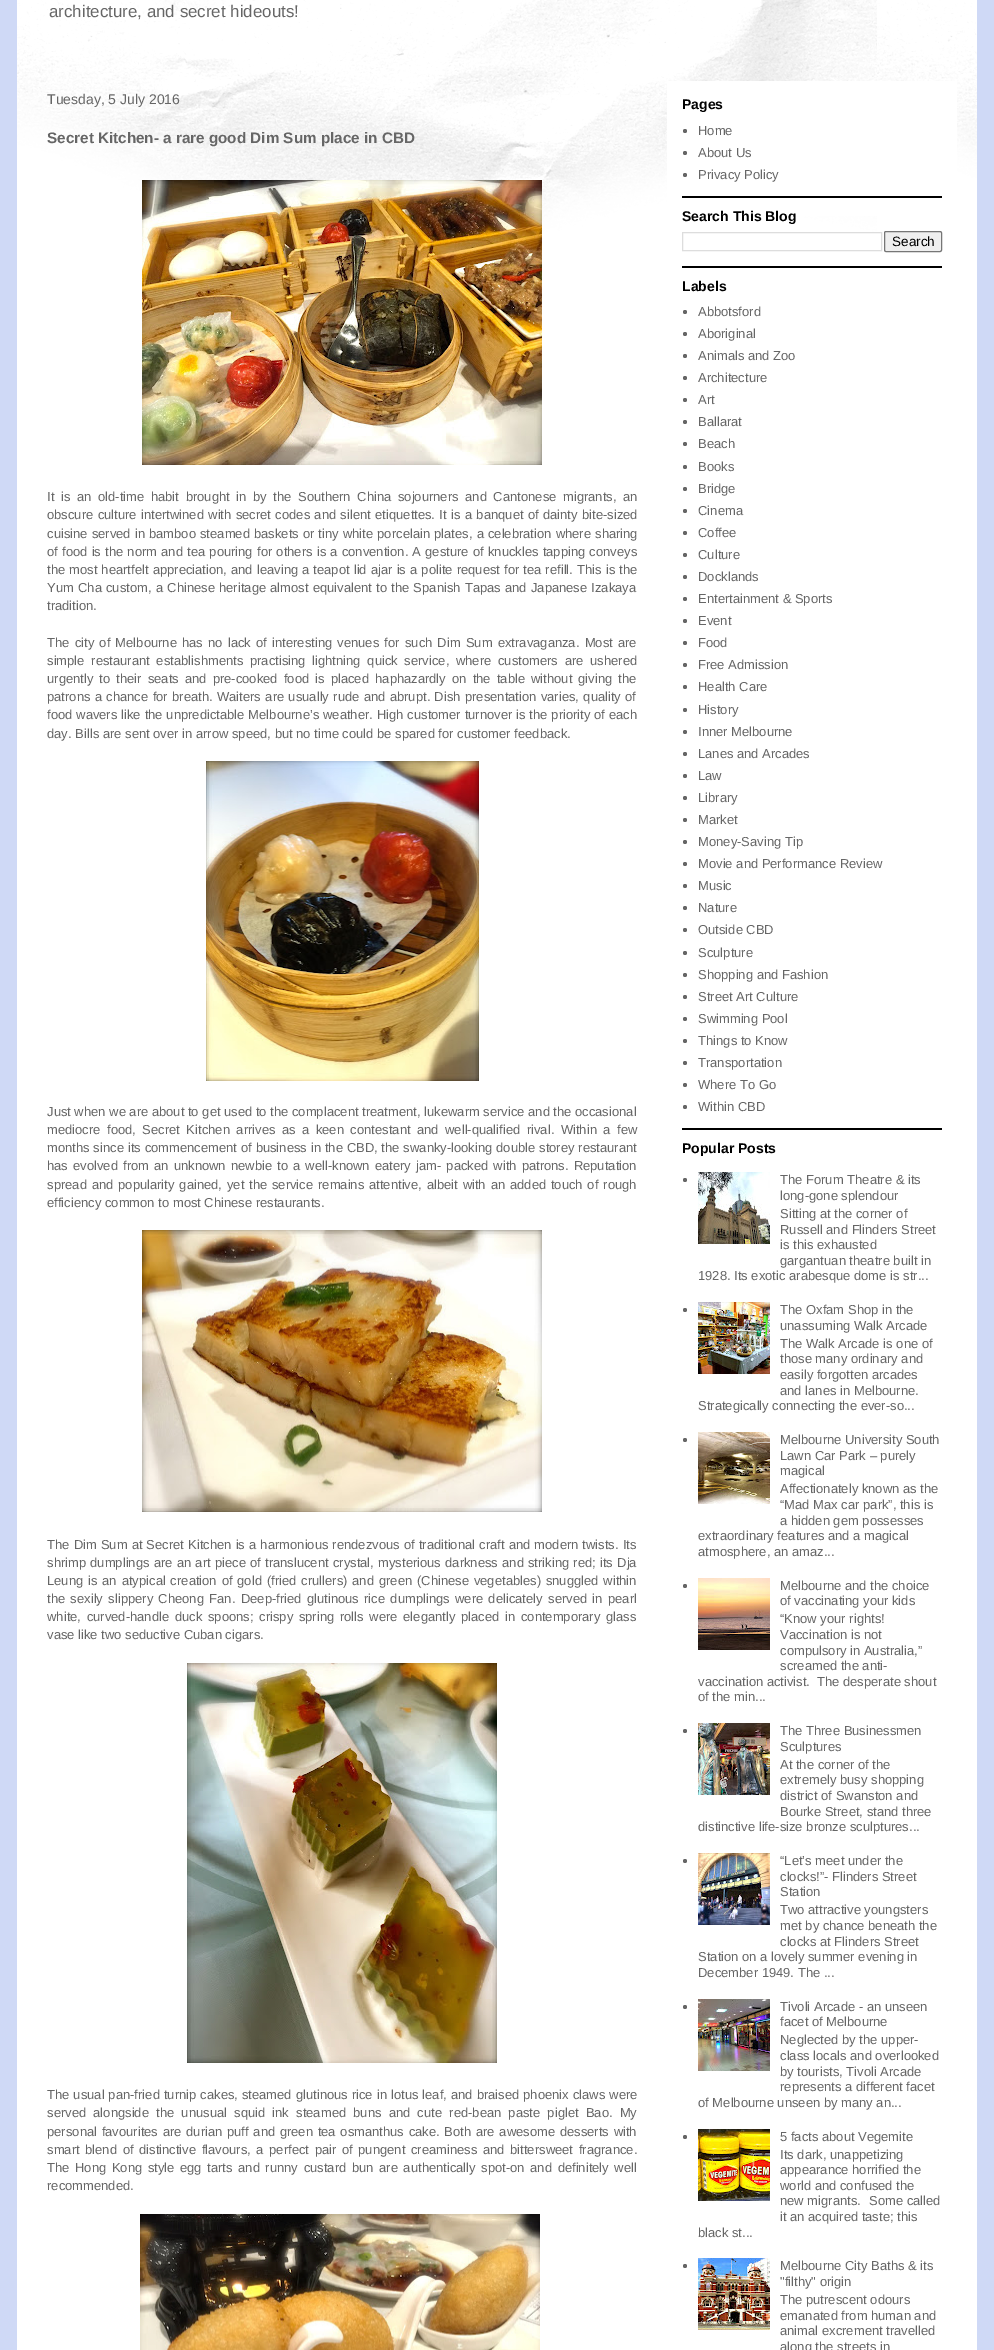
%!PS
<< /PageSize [994 2350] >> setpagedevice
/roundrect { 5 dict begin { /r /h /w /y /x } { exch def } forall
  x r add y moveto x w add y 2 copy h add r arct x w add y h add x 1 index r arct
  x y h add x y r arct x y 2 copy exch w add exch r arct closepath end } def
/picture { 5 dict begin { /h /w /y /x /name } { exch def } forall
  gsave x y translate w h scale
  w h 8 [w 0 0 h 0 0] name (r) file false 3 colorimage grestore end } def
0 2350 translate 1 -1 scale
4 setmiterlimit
0.812 0.851 0.965 setrgbcolor
0 0 994 2350 rectfill
1 setgray
17 0 960 2350 rectfill
(img1.rgb) 17 0 960 241 picture
/LiberationSans-Regular [16.9 0 0 -16.9 0 0] selectfont
0.4 setgray
49 17 moveto (architecture, and secret hideouts!) show
1 setgray
667 81 290 135 rectfill
/LiberationSans-Regular [14 0 0 -14 0 0] selectfont
0.4 setgray
47 104 moveto (Tuesday, 5 July 2016) show
/LiberationSans-Bold [15.25 0 0 -15.25 0 0] selectfont
47 143 moveto (Secret Kitchen- a rare good Dim Sum place in CBD) show
(img2.rgb) 142 180 400 285 picture
/LiberationSans-Regular [13 0 0 -13 0 0] selectfont
47 501 moveto 3 0 32 (It is an old-time habit brought in by the Southern China sojourners and Cantonese migrants, an) widthshow
47 519 moveto 0.75 0 32 (obscure culture intertwined with secret codes and silent etiquettes. It is a banquet of dainty bite-sized) widthshow
47 538 moveto 0.5 0 32 (cuisine served in bamboo steamed baskets or tiny white porcelain plates, a celebration where sharing) widthshow
47 556 moveto 0.6 0 32 (of food is the norm and tea pouring for others is a convention. A gesture of knuckles tapping conveys) widthshow
47 574 moveto 0.5 0 32 (the most heartfelt appreciation, and leaving a teapot lid ajar is a polite request for tea refill. This is the) widthshow
47 592 moveto 0.6 0 32 (Yum Cha custom, a Chinese heritage almost equivalent to the Spanish Tapas and Japanese Izakaya) widthshow
47 610 moveto (tradition.) show
47 647 moveto 1.6 0 32 (The city of Melbourne has no lack of interesting venues for such Dim Sum extravaganza. Most are) widthshow
47 665 moveto 3.1 0 32 (simple restaurant establishments practising lightning quick service, where customers are ushered) widthshow
47 683 moveto 2.5 0 32 (urgently to their seats and pre-cooked food is placed haphazardly on the table without giving the) widthshow
47 701 moveto 0.75 0 32 (patrons a chance for breath. Waiters are usually rude and abrupt. Dish presentation varies, quality of) widthshow
47 719 moveto 0.25 0 32 (food wavers like the unpredictable Melbourne’s weather. High customer turnover is the priority of each) widthshow
47 738 moveto (day. Bills are sent over in arrow speed, but no time could be spared for customer feedback.) show
(img3.rgb) 206 761 273 320 picture
47 1116 moveto (Just when we are about to get used to the complacent treatment, lukewarm service and the occasional) show
47 1134 moveto 2.9 0 32 (mediocre food, Secret Kitchen arrives as a keen contestant and well-qualified rival. Within a few) widthshow
47 1152 moveto 0.25 0 32 (months since its commencement of business in the CBD, the swanky-looking double storey restaurant) widthshow
47 1170 moveto 1.5 0 32 (has evolved from an unknown newbie to a well-known eatery jam- packed with patrons. Reputation) widthshow
47 1189 moveto 1.25 0 32 (spread and popularity gained, yet the service remains attentive, albeit with an added touch of rough) widthshow
47 1207 moveto (efficiency common to most Chinese restaurants.) show
(img4.rgb) 142 1230 400 282 picture
47 1549 moveto 0.5 0 32 (The Dim Sum at Secret Kitchen is a harmonious rendezvous of traditional craft and modern twists. Its) widthshow
47 1567 moveto 0.6 0 32 (shrimp dumplings are an art piece of translucent crystal, mysterious darkness and striking red; its Dja) widthshow
47 1585 moveto 1.25 0 32 (Leung is an atypical creation of gold \(fried crullers\) and green \(Chinese vegetables\) snuggled within) widthshow
47 1603 moveto 1.75 0 32 (the sexily slippery Cheong Fan. Deep-fried glutinous rice dumplings were delicately served in pearl) widthshow
47 1621 moveto 2.1 0 32 (white, curved-handle duck spoons; crispy spring rolls were elegantly placed in contemporary glass) widthshow
47 1639 moveto (vase like two seductive Cuban cigars.) show
(img5.rgb) 187 1663 310 400 picture
47 2099 moveto 0.4 0 32 (The usual pan-fried turnip cakes, steamed glutinous rice in lotus leaf, and braised phoenix claws were) widthshow
47 2117 moveto 3.6 0 32 (served alongside the unusual squid ink steamed buns and cute red-bean paste piglet Bao. My) widthshow
47 2136 moveto 1.1 0 32 (personal favourites are durian puff and green tea osmanthus cake. Both are awesome desserts with) widthshow
47 2154 moveto 2 0 32 (smart blend of distinctive flavours, a perfect pair of pungent creaminess and bittersweet fragrance.) widthshow
47 2172 moveto 2 0 32 (The Hong Kong style egg tarts and runny custard bun are authentically spot-on and definitely well) widthshow
47 2190 moveto (recommended.) show
(img6.rgb) 140 2214 400 136 picture
0 setgray
682 196 260 2 rectfill
/LiberationSans-Bold [14 0 0 -14 0 0] selectfont
682 109 moveto (Pages) show
0.4 setgray
newpath 685 131 2 0 360 arc closepath fill
/LiberationSans-Regular [13 0 0 -13 0 0] selectfont
698 135 moveto (Home) show
newpath 685 153 2 0 360 arc closepath fill
698 157 moveto (About Us) show
newpath 685 175 2 0 360 arc closepath fill
698 179 moveto (Privacy Policy) show
0 setgray
682 266 260 2 rectfill
/LiberationSans-Bold [14 0 0 -14 0 0] selectfont
682 221 moveto (Search This Blog) show
0.867 setgray
682.5 232.5 199 18 rectstroke
0.937 setgray
884.5 231.5 57 20 1.5 roundrect gsave fill grestore
0.463 setgray
stroke
/LiberationSans-Regular [13.5 0 0 -13.5 0 0] selectfont
0 setgray
892 246 moveto (Search) show
682 1128 260 2 rectfill
/LiberationSans-Bold [14 0 0 -14 0 0] selectfont
682 291 moveto (Labels) show
0.4 setgray
newpath 685 312 2 0 360 arc closepath fill
/LiberationSans-Regular [13 0 0 -13 0 0] selectfont
698 316 moveto (Abbotsford) show
newpath 685 334 2 0 360 arc closepath fill
698 338 moveto (Aboriginal) show
newpath 685 356 2 0 360 arc closepath fill
698 360 moveto (Animals and Zoo) show
newpath 685 378 2 0 360 arc closepath fill
698 382 moveto (Architecture) show
newpath 685 400 2 0 360 arc closepath fill
698 404 moveto (Art) show
newpath 685 422 2 0 360 arc closepath fill
698 426 moveto (Ballarat) show
newpath 685 444 2 0 360 arc closepath fill
698 448 moveto (Beach) show
newpath 685 467 2 0 360 arc closepath fill
698 471 moveto (Books) show
newpath 685 489 2 0 360 arc closepath fill
698 493 moveto (Bridge) show
newpath 685 511 2 0 360 arc closepath fill
698 515 moveto (Cinema) show
newpath 685 533 2 0 360 arc closepath fill
698 537 moveto (Coffee) show
newpath 685 555 2 0 360 arc closepath fill
698 559 moveto (Culture) show
newpath 685 577 2 0 360 arc closepath fill
698 581 moveto (Docklands) show
newpath 685 599 2 0 360 arc closepath fill
698 603 moveto (Entertainment & Sports) show
newpath 685 621 2 0 360 arc closepath fill
698 625 moveto (Event) show
newpath 685 643 2 0 360 arc closepath fill
698 647 moveto (Food) show
newpath 685 665 2 0 360 arc closepath fill
698 669 moveto (Free Admission) show
newpath 685 687 2 0 360 arc closepath fill
698 691 moveto (Health Care) show
newpath 685 710 2 0 360 arc closepath fill
698 714 moveto (History) show
newpath 685 732 2 0 360 arc closepath fill
698 736 moveto (Inner Melbourne) show
newpath 685 754 2 0 360 arc closepath fill
698 758 moveto (Lanes and Arcades) show
newpath 685 776 2 0 360 arc closepath fill
698 780 moveto (Law) show
newpath 685 798 2 0 360 arc closepath fill
698 802 moveto (Library) show
newpath 685 820 2 0 360 arc closepath fill
698 824 moveto (Market) show
newpath 685 842 2 0 360 arc closepath fill
698 846 moveto (Money-Saving Tip) show
newpath 685 864 2 0 360 arc closepath fill
698 868 moveto (Movie and Performance Review) show
newpath 685 886 2 0 360 arc closepath fill
698 890 moveto (Music) show
newpath 685 908 2 0 360 arc closepath fill
698 912 moveto (Nature) show
newpath 685 930 2 0 360 arc closepath fill
698 934 moveto (Outside CBD) show
newpath 685 953 2 0 360 arc closepath fill
698 957 moveto (Sculpture) show
newpath 685 975 2 0 360 arc closepath fill
698 979 moveto (Shopping and Fashion) show
newpath 685 997 2 0 360 arc closepath fill
698 1001 moveto (Street Art Culture) show
newpath 685 1019 2 0 360 arc closepath fill
698 1023 moveto (Swimming Pool) show
newpath 685 1041 2 0 360 arc closepath fill
698 1045 moveto (Things to Know) show
newpath 685 1063 2 0 360 arc closepath fill
698 1067 moveto (Transportation) show
newpath 685 1085 2 0 360 arc closepath fill
698 1089 moveto (Where To Go) show
newpath 685 1107 2 0 360 arc closepath fill
698 1111 moveto (Within CBD) show
/LiberationSans-Bold [14 0 0 -14 0 0] selectfont
0 setgray
682 1153 moveto (Popular Posts) show
0.4 setgray
newpath 685 1180 2 0 360 arc closepath fill
(img7.rgb) 698 1172 72 72 picture
/LiberationSans-Regular [13 0 0 -13 0 0] selectfont
780 1184 moveto (The Forum Theatre & its) show
780 1200 moveto (long-gone splendour) show
780 1218 moveto (Sitting at the corner of) show
780 1234 moveto (Russell and Flinders Street) show
780 1249 moveto (is this exhausted) show
780 1265 moveto (gargantuan theatre built in) show
698 1280 moveto (1928. Its exotic arabesque dome is str...) show
newpath 685 1310 2 0 360 arc closepath fill
(img8.rgb) 698 1302 72 72 picture
780 1314 moveto (The Oxfam Shop in the) show
780 1330 moveto (unassuming Walk Arcade) show
780 1348 moveto (The Walk Arcade is one of) show
780 1363 moveto (those many ordinary and) show
780 1379 moveto (easily forgotten arcades) show
780 1395 moveto (and lanes in Melbourne.) show
698 1410 moveto (Strategically connecting the ever-so...) show
newpath 685 1440 2 0 360 arc closepath fill
(img9.rgb) 698 1432 72 72 picture
780 1444 moveto (Melbourne University South) show
780 1460 moveto (Lawn Car Park – purely) show
780 1475 moveto (magical) show
780 1493 moveto (Affectionately known as the) show
780 1509 moveto (“Mad Max car park”, this is) show
780 1525 moveto (a hidden gem possesses) show
698 1540 moveto (extraordinary features and a magical) show
698 1556 moveto (atmosphere, an amaz...) show
newpath 685 1586 2 0 360 arc closepath fill
(img10.rgb) 698 1578 72 72 picture
780 1590 moveto (Melbourne and the choice) show
780 1605 moveto (of vaccinating your kids) show
780 1623 moveto (“Know your rights!) show
780 1639 moveto (Vaccination is not) show
780 1655 moveto (compulsory in Australia,”) show
780 1670 moveto (screamed the anti-) show
698 1686 moveto (vaccination activist.) show
817 1686 moveto (The desperate shout) show
698 1701 moveto (of the min...) show
newpath 685 1731 2 0 360 arc closepath fill
(img11.rgb) 698 1723 72 72 picture
780 1735 moveto (The Three Businessmen) show
780 1751 moveto (Sculptures) show
780 1769 moveto (At the corner of the) show
780 1784 moveto (extremely busy shopping) show
780 1800 moveto (district of Swanston and) show
780 1816 moveto (Bourke Street, stand three) show
698 1831 moveto (distinctive life-size bronze sculptures...) show
newpath 685 1861 2 0 360 arc closepath fill
(img12.rgb) 698 1853 72 72 picture
780 1865 moveto (“Let’s meet under the) show
780 1881 moveto (clocks!”- Flinders Street) show
780 1896 moveto (Station) show
780 1914 moveto (Two attractive youngsters) show
780 1930 moveto (met by chance beneath the) show
780 1946 moveto (clocks at Flinders Street) show
698 1961 moveto (Station on a lovely summer evening in) show
698 1977 moveto (December 1949. The ...) show
newpath 685 2007 2 0 360 arc closepath fill
(img13.rgb) 698 1999 72 72 picture
780 2011 moveto (Tivoli Arcade - an unseen) show
780 2026 moveto (facet of Melbourne) show
780 2044 moveto (Neglected by the upper-) show
780 2060 moveto (class locals and overlooked) show
780 2076 moveto (by tourists, Tivoli Arcade) show
780 2091 moveto (represents a different facet) show
698 2107 moveto (of Melbourne unseen by many an...) show
newpath 685 2137 2 0 360 arc closepath fill
(img14.rgb) 698 2129 72 72 picture
780 2141 moveto (5 facts about Vegemite) show
780 2159 moveto (Its dark, unappetizing) show
780 2174 moveto (appearance horrified the) show
780 2190 moveto (world and confused the) show
780 2205 moveto (new migrants.) show
869 2205 moveto (Some called) show
780 2221 moveto (it an acquired taste; this) show
698 2237 moveto (black st...) show
newpath 685 2266 2 0 360 arc closepath fill
(img15.rgb) 698 2258 72 72 picture
780 2270 moveto (Melbourne City Baths & its) show
780 2286 moveto ("filthy" origin) show
780 2304 moveto (The putrescent odours) show
780 2320 moveto (emanated from human and) show
780 2335 moveto (animal excrement travelled) show
780 2351 moveto (along the streets in) show
showpage
